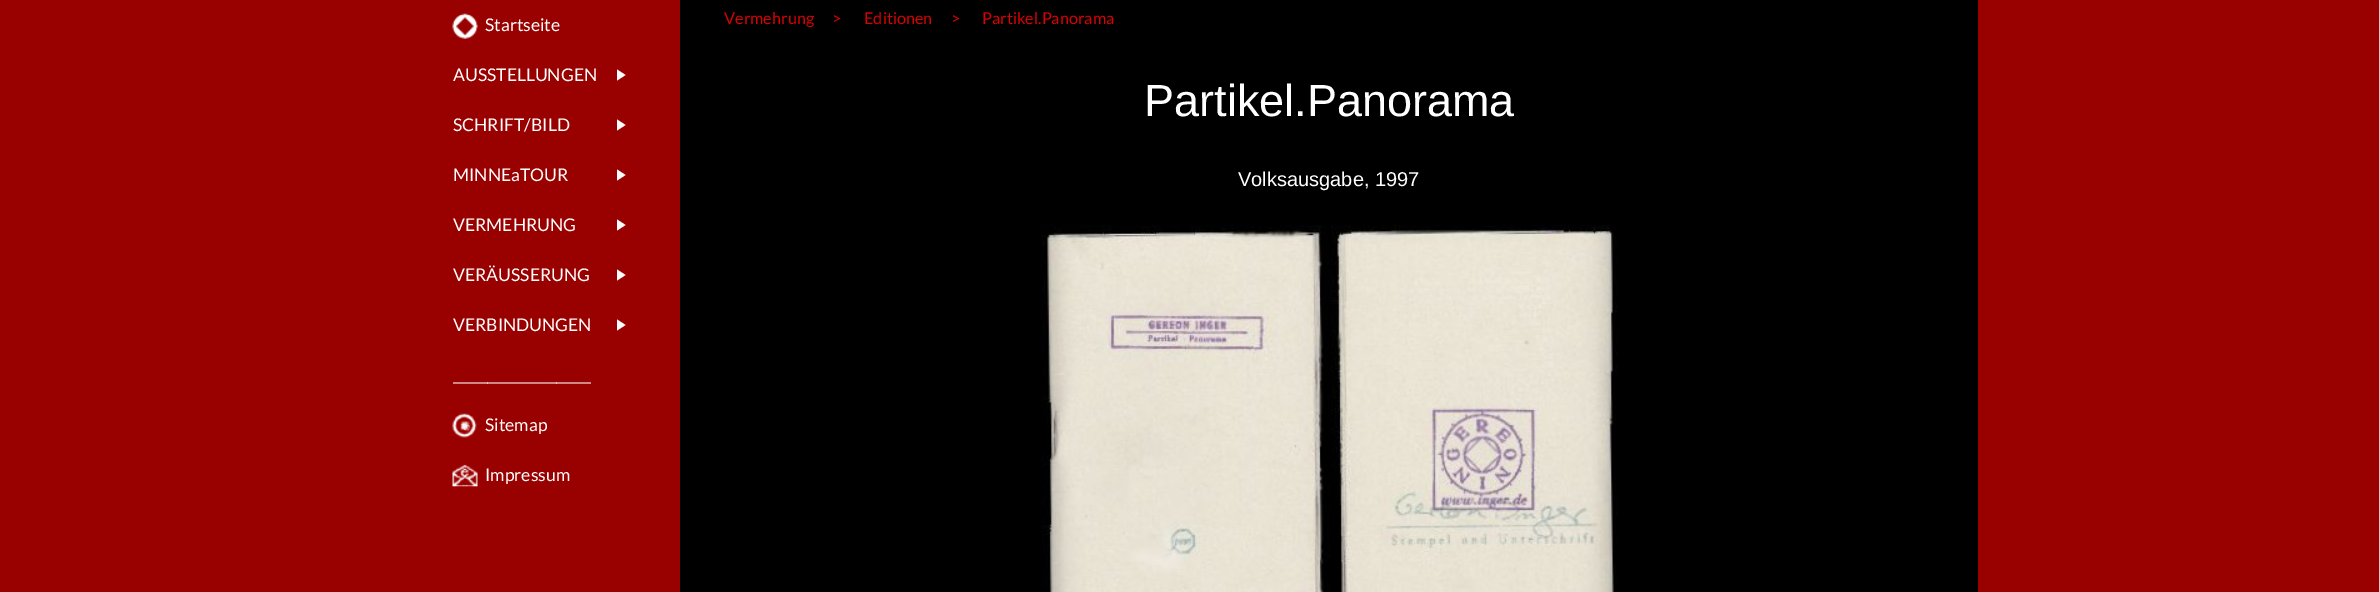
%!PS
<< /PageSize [2379 592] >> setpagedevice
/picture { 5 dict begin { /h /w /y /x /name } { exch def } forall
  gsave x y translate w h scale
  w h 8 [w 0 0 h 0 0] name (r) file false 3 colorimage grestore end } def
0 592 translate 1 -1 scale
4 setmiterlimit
0.6 0 0 setrgbcolor
0 0 2379 592 rectfill
0 setgray
680 0 1298 592 rectfill
(img1.rgb) 452 13 26 26 picture
/Lato-Regular [17.5 0 0 -17.5 0 0] selectfont
1 setgray
485 31 moveto (Startseite) show
453 81 moveto (AUSSTELLUNGEN) show
newpath 617 69.5 moveto 625.5 75 lineto 617 80.5 lineto closepath fill
453 131 moveto (SCHRIFT/BILD) show
newpath 617 119.5 moveto 625.5 125 lineto 617 130.5 lineto closepath fill
453 181 moveto (MINNEaTOUR) show
newpath 617 169.5 moveto 625.5 175 lineto 617 180.5 lineto closepath fill
453 231 moveto (VERMEHRUNG) show
newpath 617 219.5 moveto 625.5 225 lineto 617 230.5 lineto closepath fill
453 281 moveto (VERÄUSSERUNG) show
newpath 617 269.5 moveto 625.5 275 lineto 617 280.5 lineto closepath fill
453 331 moveto (VERBINDUNGEN) show
newpath 617 319.5 moveto 625.5 325 lineto 617 330.5 lineto closepath fill
453 381 moveto (____________________) show
(img2.rgb) 452 413 25 25 picture
485 431 moveto (Sitemap) show
(img3.rgb) 452 464 26 23 picture
485 481 moveto (Impressum) show
/Lato-Regular [16.25 0 0 -16.25 0 0] selectfont
0.835 0.012 0.012 setrgbcolor
724 24 moveto (Vermehrung) show
832 24 moveto (>) show
864 24 moveto (Editionen) show
951 24 moveto (>) show
982 24 moveto (Partikel.Panorama) show
/LiberationSans-Regular [45 0 0 -45 0 0] selectfont
1 setgray
1144 116 moveto (Partikel.Panorama) show
/LiberationSans-Regular [20 0 0 -20 0 0] selectfont
1238 186 moveto (Volksausgabe, 1997) show
(img4.rgb) 1041 225 577 367 picture
showpage
